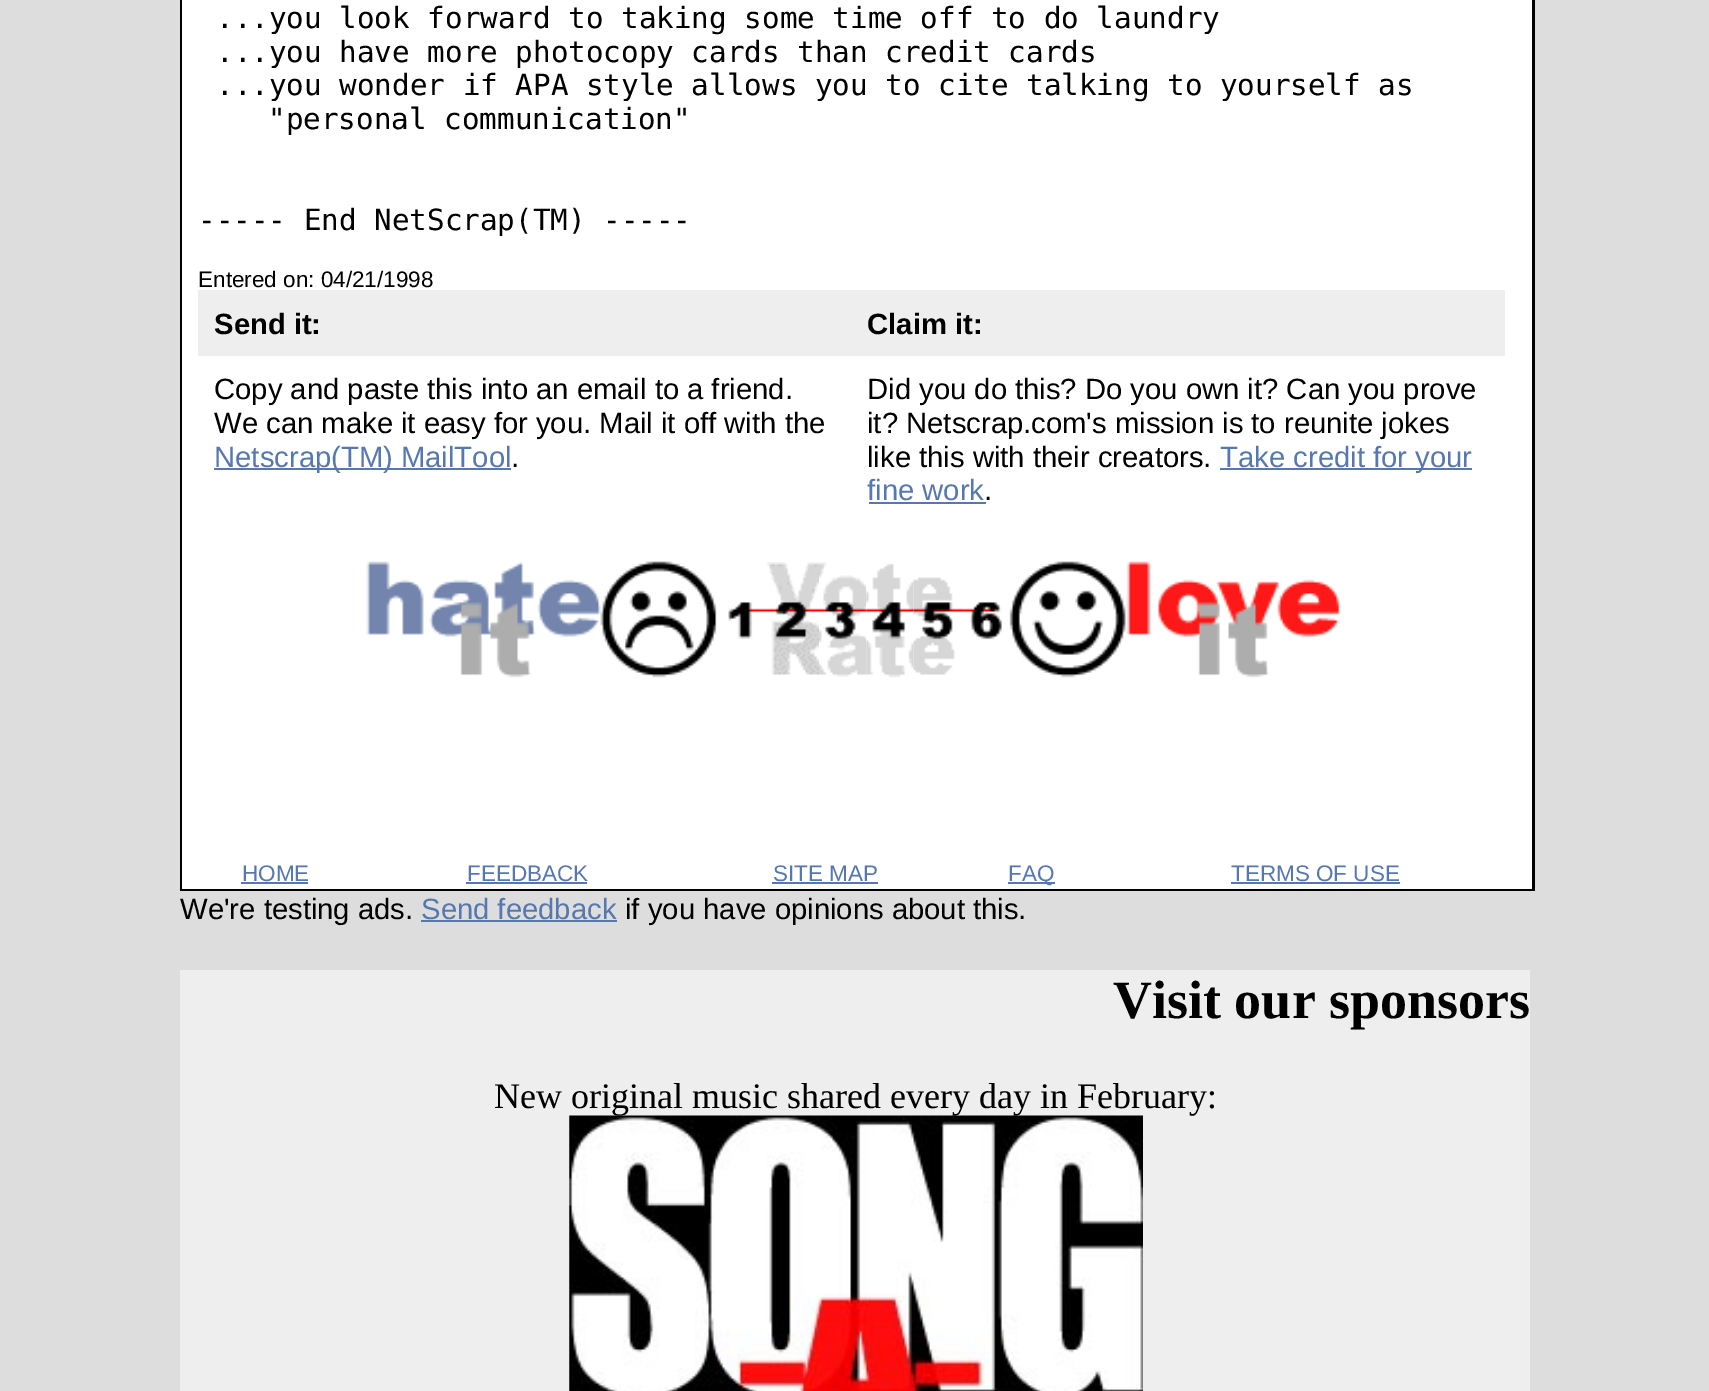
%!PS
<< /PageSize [1709 1391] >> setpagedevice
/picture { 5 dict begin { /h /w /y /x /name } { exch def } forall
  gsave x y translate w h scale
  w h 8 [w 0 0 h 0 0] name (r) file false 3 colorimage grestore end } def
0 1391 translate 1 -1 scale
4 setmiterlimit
0.867 setgray
0 0 1709 1391 rectfill
0 setgray
180 0 1355 891 rectfill
1 setgray
182 0 1350 889 rectfill
/DejaVuSansMono-Regular [29.25 0 0 -29.25 0 0] selectfont
0 setgray
216 28 moveto (...you look forward to taking some time off to do laundry) show
216 62 moveto (...you have more photocopy cards than credit cards) show
216 95 moveto (...you wonder if APA style allows you to cite talking to yourself as) show
268 129 moveto ("personal communication") show
198 230 moveto (----- End NetScrap\(TM\) -----) show
/LiberationSans-Regular [22.5 0 0 -22.5 0 0] selectfont
198 287 moveto (Entered on: 04/21/1998) show
0.933 setgray
198 290 1307 66 rectfill
/LiberationSans-Bold [29.25 0 0 -29.25 0 0] selectfont
0 setgray
214 334 moveto (Send it:) show
867 334 moveto (Claim it:) show
/LiberationSans-Regular [29.25 0 0 -29.25 0 0] selectfont
214 399 moveto (Copy and paste this into an email to a friend.) show
214 433 moveto (We can make it easy for you. Mail it off with the) show
0.337 0.471 0.686 setrgbcolor
214 468 297 2 rectfill
214 467 moveto (Netscrap\(TM\) MailTool) show
0 setgray
511 467 moveto (.) show
867 399 moveto (Did you do this? Do you own it? Can you prove) show
867 433 moveto (it? Netscrap.com's mission is to reunite jokes) show
867 467 moveto (like this with their creators.) show
0.337 0.471 0.686 setrgbcolor
1220 468 252 2 rectfill
1220 467 moveto (Take credit for your) show
867 500 moveto (fine work) show
0 setgray
984 500 moveto (.) show
0.337 0.471 0.686 setrgbcolor
869 502 117 2 rectfill
(img1.rgb) 366 561 351 117 picture
(img2.rgb) 728 602 37 37 picture
(img3.rgb) 765 562 54 113 picture
(img4.rgb) 819 562 48 115 picture
(img5.rgb) 866 563 48 115 picture
(img6.rgb) 913 577 50 98 picture
(img7.rgb) 963 602 39 38 picture
(img8.rgb) 1009 561 331 117 picture
/LiberationSans-Regular [22.5 0 0 -22.5 0 0] selectfont
242 881 moveto (HOME) show
241 882 67 2 rectfill
467 881 moveto (FEEDBACK) show
466 882 121 2 rectfill
773 881 moveto (SITE MAP) show
772 882 106 2 rectfill
1008 882 47 2 rectfill
1008 881 moveto (FAQ) show
1231 881 moveto (TERMS OF USE) show
1231 882 169 2 rectfill
/LiberationSans-Regular [29.25 0 0 -29.25 0 0] selectfont
0 setgray
180 919 moveto (We're testing ads.) show
0.337 0.471 0.686 setrgbcolor
421 919 moveto (Send feedback) show
421 920 196 2 rectfill
0 setgray
625 919 moveto (if you have opinions about this.) show
0.933 setgray
180 970 1350 421 rectfill
/LiberationSerif-Bold [54 0 0 -54 0 0] selectfont
0 setgray
1113 1018 moveto (Visit our sponsors) show
/LiberationSerif-Regular [36 0 0 -36 0 0] selectfont
494 1108 moveto (New original music shared every day in February:) show
(img9.rgb) 569 1115 574 276 picture
showpage
